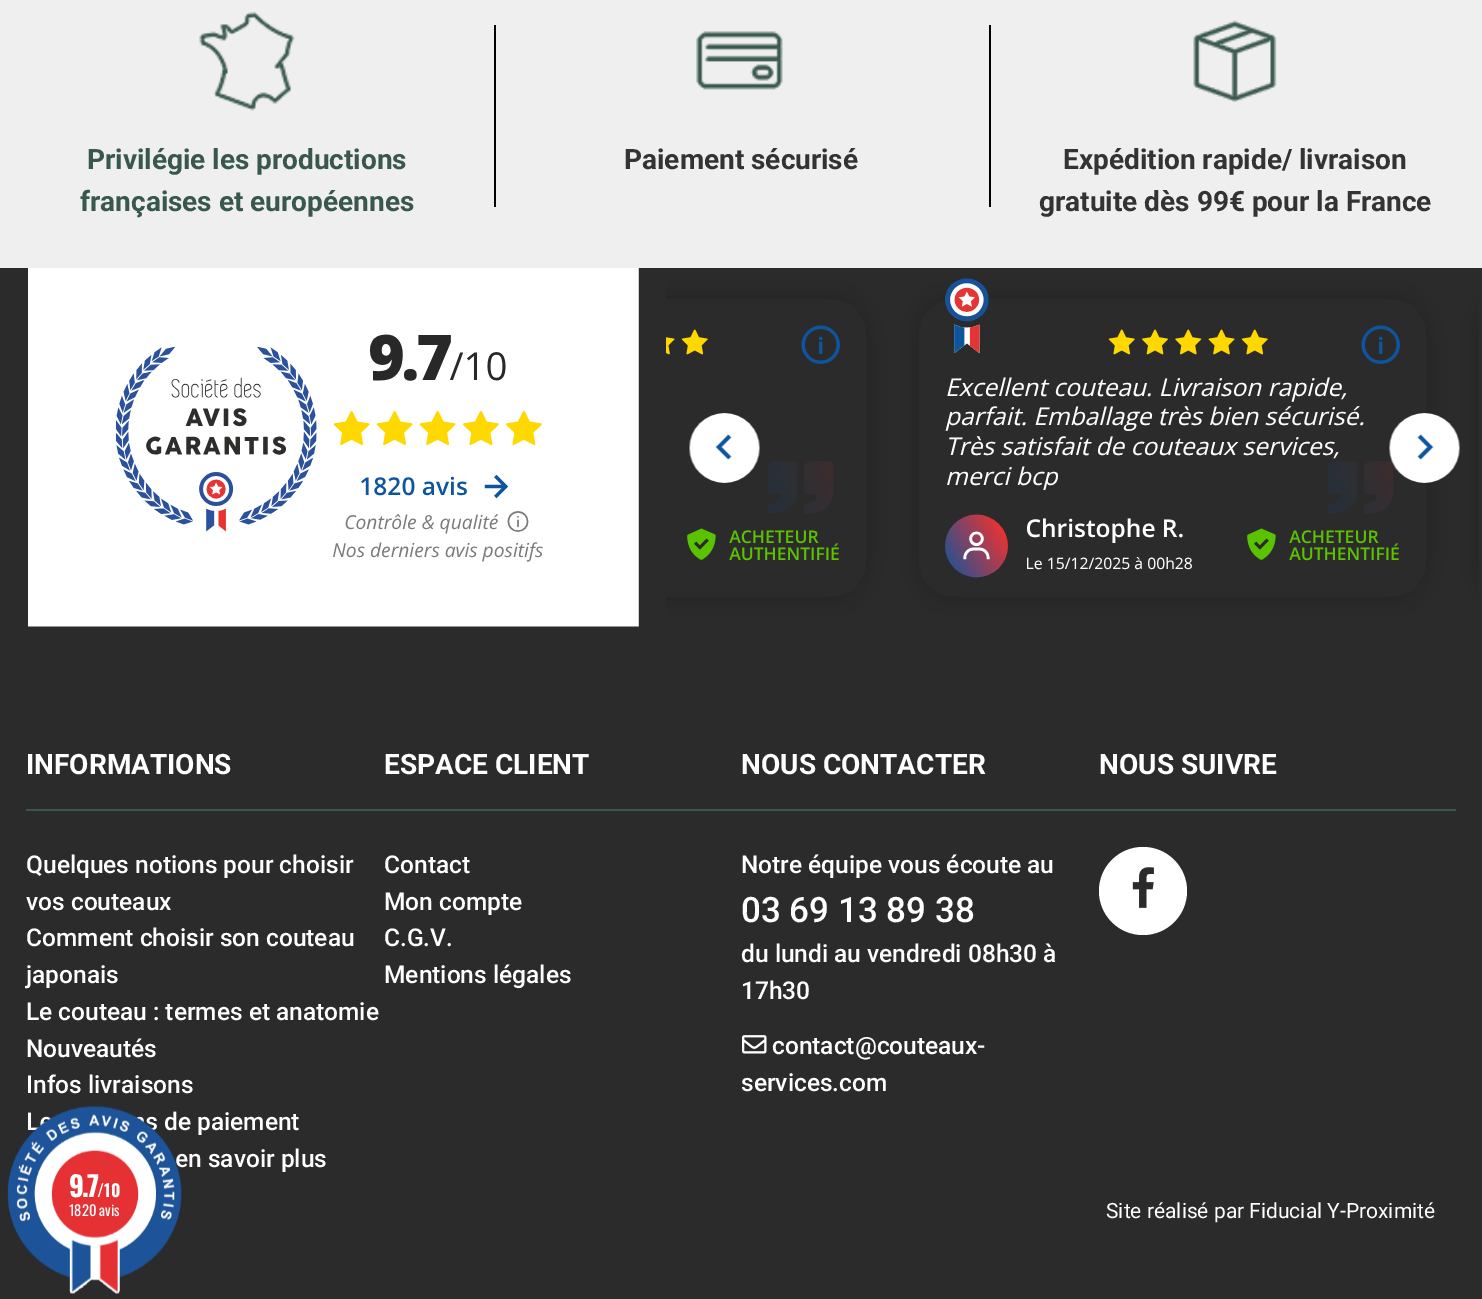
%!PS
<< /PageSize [1482 1299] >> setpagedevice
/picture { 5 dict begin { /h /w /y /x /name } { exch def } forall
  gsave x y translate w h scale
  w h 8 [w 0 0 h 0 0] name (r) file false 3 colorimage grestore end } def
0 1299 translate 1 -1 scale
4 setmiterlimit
0.169 setgray
0 0 1482 1299 rectfill
0.937 setgray
0 0 1482 268 rectfill
(img1.rgb) 199 11 96 100 picture
/Roboto-Bold [28 0 0 -28 0 0] selectfont
0.224 0.345 0.302 setrgbcolor
87 169 moveto (Privilégie les productions) show
80 211 moveto (françaises et européennes) show
0 setgray
494 25 2 182 rectfill
(img2.rgb) 696 31 87 59 picture
0.2 setgray
624 169 moveto (Paiement sécurisé) show
0 setgray
989 25 2 182 rectfill
(img3.rgb) 1193 20 84 82 picture
0.2 setgray
1063 169 moveto (Expédition rapide/ livraison) show
1039 211 moveto (gratuite dès 99€ pour la France) show
(img4.rgb) 28 268 1450 359 picture
0.224 0.345 0.302 setrgbcolor
26 809 1430 2 rectfill
1 setgray
26 774 moveto (INFORMATIONS) show
/Roboto-Medium [24.5 0 0 -24.5 0 0] selectfont
26 873 moveto (Quelques notions pour choisir) show
26 910 moveto (vos couteaux) show
26 946 moveto (Comment choisir son couteau) show
26 983 moveto (japonais) show
26 1020 moveto (Le couteau : termes et anatomie) show
26 1057 moveto (Nouveautés) show
26 1093 moveto (Infos livraisons) show
164 1130 moveto (de paiement) show
175 1167 moveto (en savoir plus) show
/Roboto-Bold [28 0 0 -28 0 0] selectfont
384 774 moveto (ESPACE CLIENT) show
/Roboto-Medium [24.5 0 0 -24.5 0 0] selectfont
384 873 moveto (Contact) show
384 910 moveto (Mon compte) show
384 946 moveto (C.G.V.) show
384 983 moveto (Mentions légales) show
/Roboto-Bold [28 0 0 -28 0 0] selectfont
741 774 moveto (NOUS CONTACTER) show
/Roboto-Medium [24.5 0 0 -24.5 0 0] selectfont
741 873 moveto (Notre équipe vous écoute au) show
/Roboto-Medium [35 0 0 -35 0 0] selectfont
741 922 moveto (03 69 13 89 38) show
/Roboto-Medium [24.5 0 0 -24.5 0 0] selectfont
741 962 moveto (du lundi au vendredi 08h30 à) show
741 999 moveto (17h30) show
(img5.rgb) 742 1035 25 19 picture
772 1054 moveto (contact@couteaux-) show
741 1091 moveto (services.com) show
/Roboto-Bold [28 0 0 -28 0 0] selectfont
1099 774 moveto (NOUS SUIVRE) show
newpath 1143 891 44 0 360 arc closepath fill
(img6.rgb) 1132 867 22 41 picture
/Roboto-Regular [21 0 0 -21 0 0] selectfont
1106 1218 moveto (Site réalisé par Fiducial Y-Proximité) show
(img7.rgb) 7 1105 175 189 picture
/Oswald-Bold [28 0 0 -28 0 0] selectfont
69 1197 moveto -2 0 (9.7) ashow
/Oswald-Bold [17 0 0 -17 0 0] selectfont
97 1197 moveto (/10) show
/Oswald-Regular [14.5 0 0 -14.5 0 0] selectfont
69 1216 moveto (1820 avis) show
showpage
